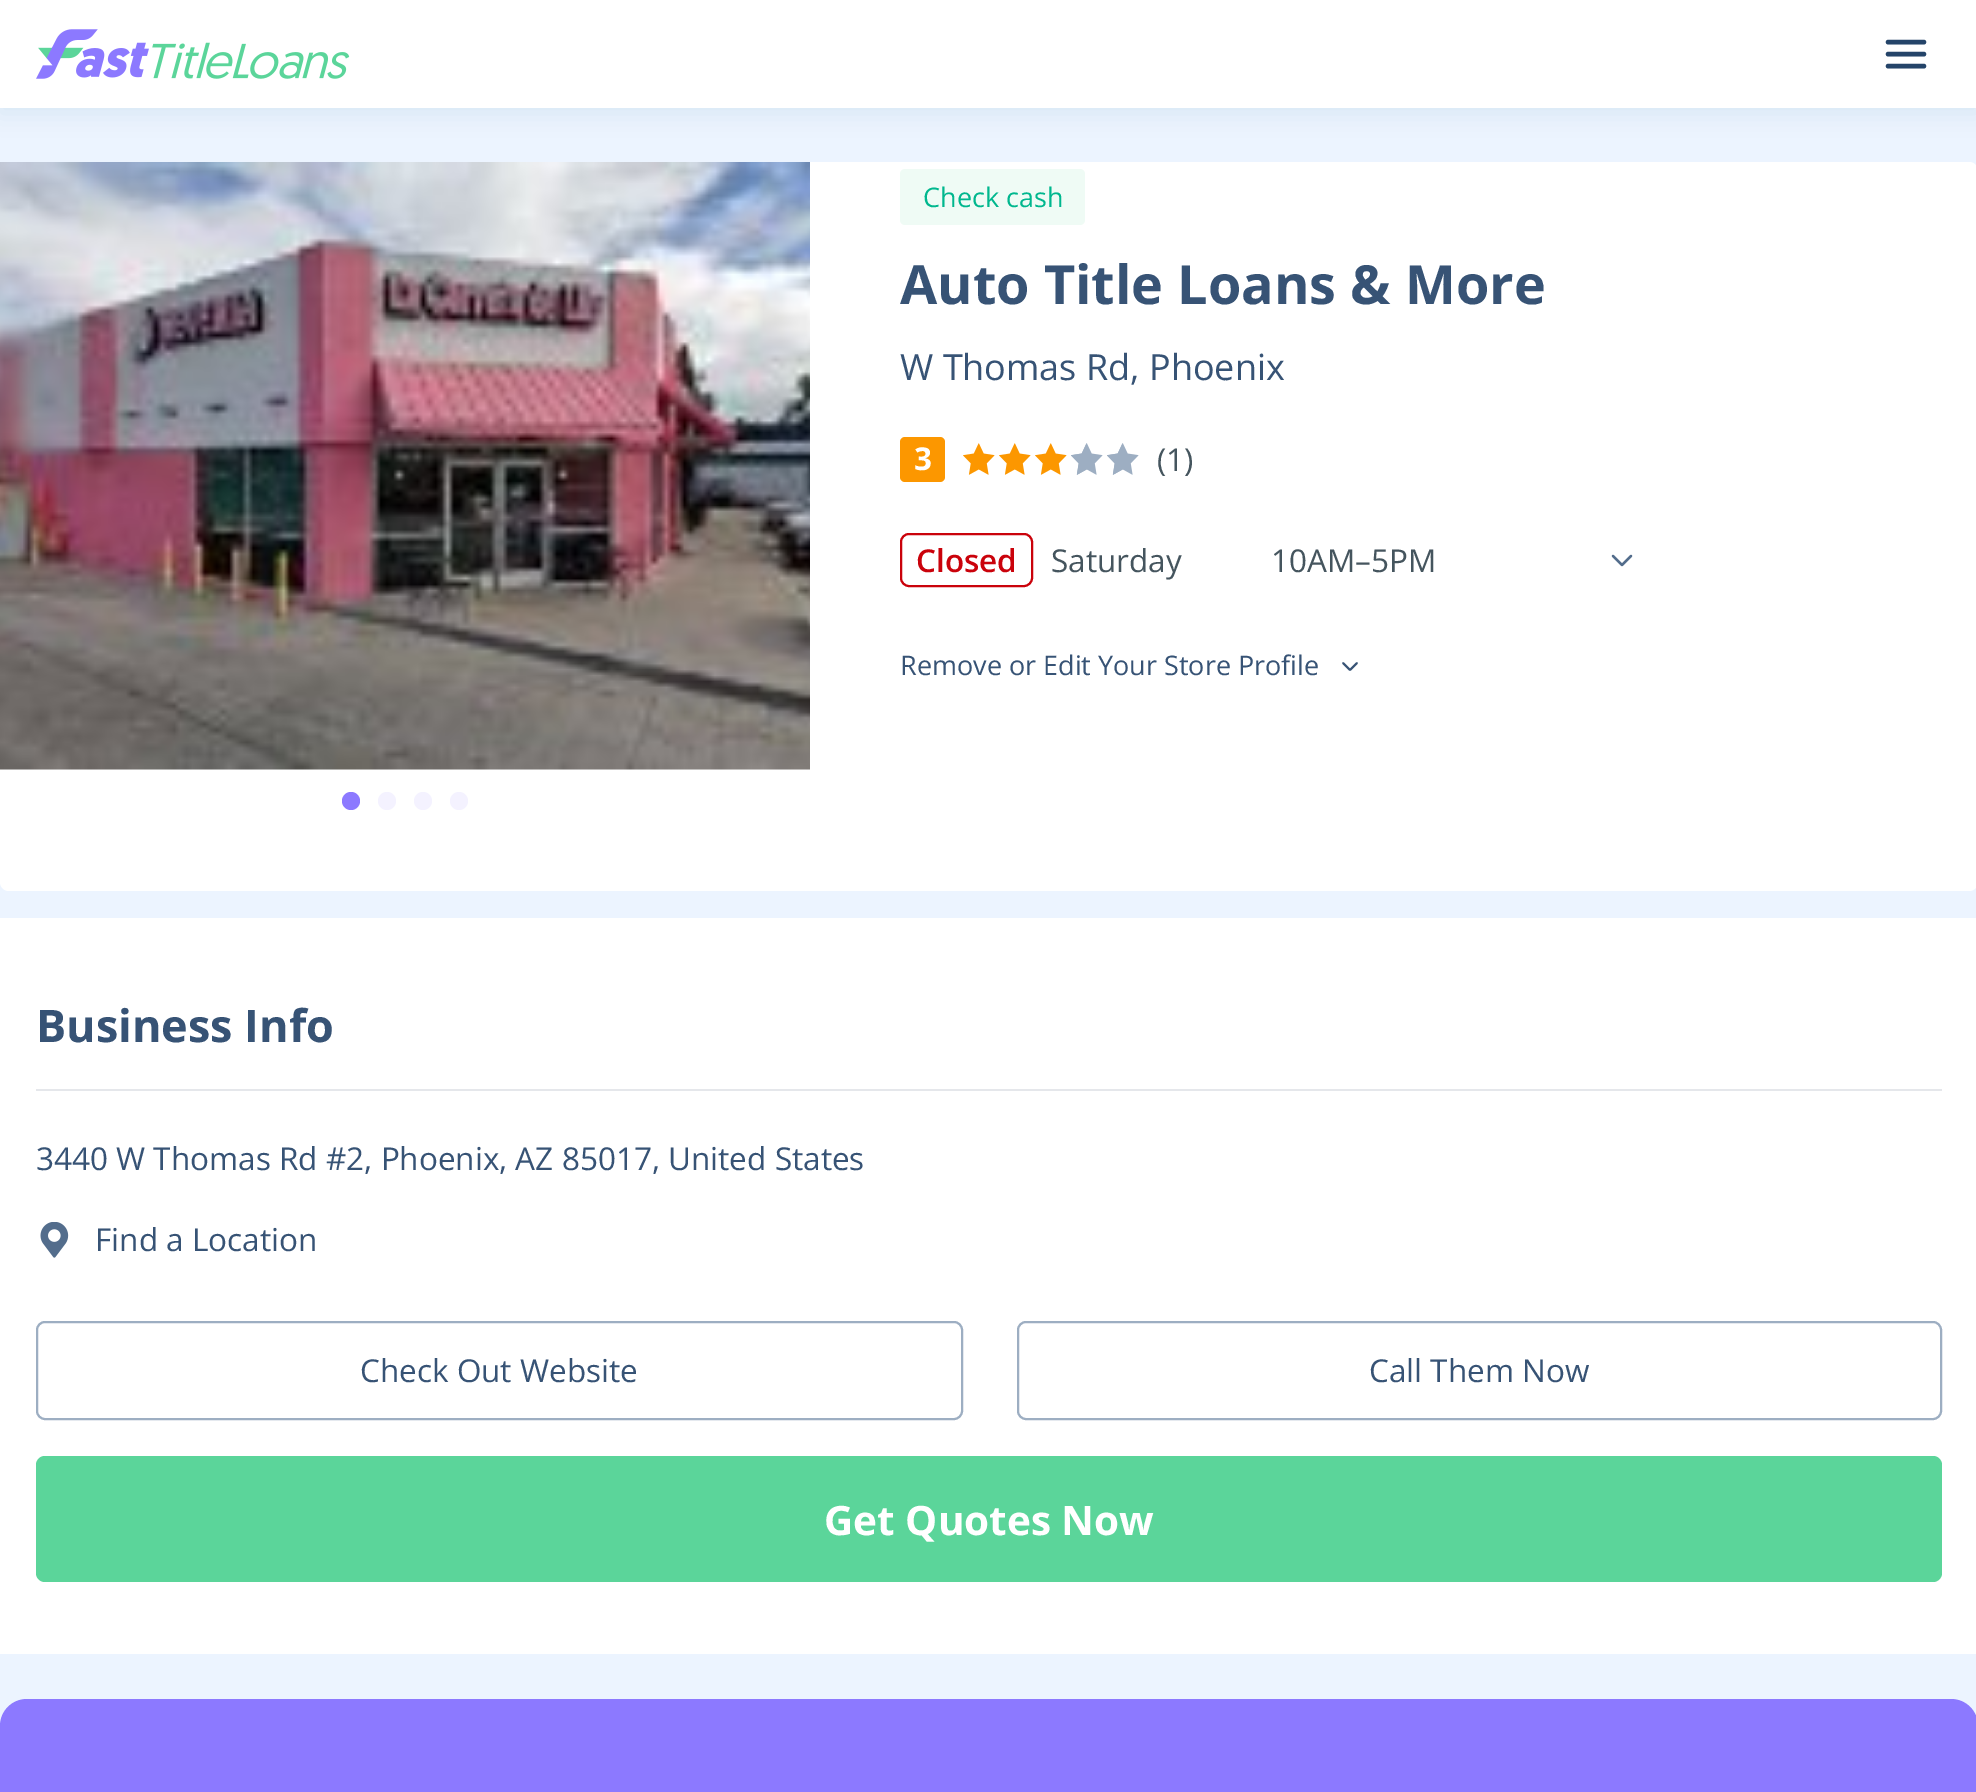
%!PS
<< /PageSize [1976 1792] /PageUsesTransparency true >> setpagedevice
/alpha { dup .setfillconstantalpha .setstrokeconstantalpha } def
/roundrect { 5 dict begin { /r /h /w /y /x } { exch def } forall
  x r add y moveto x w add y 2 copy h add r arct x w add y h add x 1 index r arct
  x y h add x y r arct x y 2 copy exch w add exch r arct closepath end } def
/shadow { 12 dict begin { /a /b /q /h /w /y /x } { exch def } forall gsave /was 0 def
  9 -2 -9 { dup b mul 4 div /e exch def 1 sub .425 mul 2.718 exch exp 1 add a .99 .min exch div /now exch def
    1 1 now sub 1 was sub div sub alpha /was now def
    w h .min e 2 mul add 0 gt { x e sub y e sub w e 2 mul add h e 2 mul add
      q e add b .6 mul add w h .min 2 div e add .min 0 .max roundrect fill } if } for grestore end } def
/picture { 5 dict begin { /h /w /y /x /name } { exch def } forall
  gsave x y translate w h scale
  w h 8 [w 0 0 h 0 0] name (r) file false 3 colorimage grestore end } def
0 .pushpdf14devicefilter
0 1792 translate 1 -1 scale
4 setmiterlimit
0.925 0.957 1 setrgbcolor
0 0 1976 1792 rectfill
0 0.314 0.49 setrgbcolor
0 5 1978 108 0 11 0.08 shadow
1 setgray
0 0 1976 108 rectfill
(img1.rgb) 36 29 314 50 picture
0.141 0.267 0.412 setrgbcolor
4.5 setlinewidth
1 setlinecap
newpath 1888 42 moveto 1924 42 lineto 1888 54 moveto 1924 54 lineto 1888 66 moveto 1924 66 lineto stroke
1 setgray
0 162 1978 729 9 roundrect fill
(img2.rgb) 0 162 810 608 picture
0.549 0.475 1 setrgbcolor
newpath 351 801 9 0 360 arc closepath fill
0.957 0.949 1 setrgbcolor
newpath 387 801 9 0 360 arc closepath fill
newpath 423 801 9 0 360 arc closepath fill
newpath 459 801 9 0 360 arc closepath fill
0.937 0.984 0.961 setrgbcolor
900 169 185 56 5 roundrect fill
/OpenSans-Regular [27 0 0 -27 0 0] selectfont
0 0.718 0.557 setrgbcolor
923 207 moveto (Check cash) show
/OpenSans-Bold [54 0 0 -54 0 0] selectfont
0.216 0.325 0.459 setrgbcolor
900 304 moveto (Auto Title Loans & More) show
/OpenSans-Regular [36 0 0 -36 0 0] selectfont
900 380 moveto (W Thomas Rd, Phoenix) show
0.988 0.592 0 setrgbcolor
900 437 45 45 5 roundrect fill
/OpenSans-Bold [31.5 0 0 -31.5 0 0] selectfont
1 setgray
914 470 moveto (3) show
(img3.rgb) 963 443 32 32 picture
(img3.rgb) 999 443 32 32 picture
(img3.rgb) 1035 443 32 32 picture
(img4.rgb) 1071 443 32 32 picture
(img4.rgb) 1107 443 32 32 picture
/OpenSans-Regular [31.5 0 0 -31.5 0 0] selectfont
0.271 0.333 0.369 setrgbcolor
1157 471 moveto (\(1\)) show
0.792 0.008 0.043 setrgbcolor
2 setlinewidth
0 setlinecap
901 534 131 52 8 roundrect stroke
/OpenSans-SemiBold [31.5 0 0 -31.5 0 0] selectfont
916 572 moveto (Closed) show
/OpenSans-Regular [31.5 0 0 -31.5 0 0] selectfont
0.271 0.333 0.369 setrgbcolor
1051 572 moveto (Saturday) show
1271 572 moveto (10AM–5PM) show
0.325 0.427 0.549 setrgbcolor
2.2 setlinewidth
1 setlinecap
1 setlinejoin
newpath 1613 556 moveto 1622 565 lineto 1631 556 lineto stroke
/OpenSans-Regular [27 0 0 -27 0 0] selectfont
0.216 0.325 0.459 setrgbcolor
900 675 moveto (Remove or Edit Your Store Profile) show
1.8 setlinewidth
newpath 1343 663 moveto 1350 670 lineto 1357 663 lineto stroke
1 setgray
0 918 1976 736 rectfill
0.898 0.906 0.922 setrgbcolor
36 1089 1906 2 rectfill
/OpenSans-Bold [45 0 0 -45 0 0] selectfont
0.216 0.325 0.459 setrgbcolor
36 1042 moveto (Business Info) show
/OpenSans-Regular [31.5 0 0 -31.5 0 0] selectfont
36 1170 moveto (3440 W Thomas Rd #2, Phoenix, AZ 85017, United States) show
(img5.rgb) 40 1222 29 36 picture
95 1251 moveto (Find a Location) show
0.616 0.682 0.761 setrgbcolor
2 setlinewidth
0 setlinecap
0 setlinejoin
37 1322 925 97 8 roundrect stroke
0.216 0.325 0.459 setrgbcolor
360 1382 moveto (Check Out Website) show
0.616 0.682 0.761 setrgbcolor
1018 1322 923 97 8 roundrect stroke
0.216 0.325 0.459 setrgbcolor
1369 1382 moveto (Call Them Now) show
0.357 0.835 0.604 setrgbcolor
36 1456 1906 126 9 roundrect fill
/OpenSans-Bold [40.5 0 0 -40.5 0 0] selectfont
1 setgray
824 1535 moveto (Get Quotes Now) show
0.549 0.475 1 setrgbcolor
0 1699 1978 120 27 roundrect fill
.poppdf14devicefilter showpage
